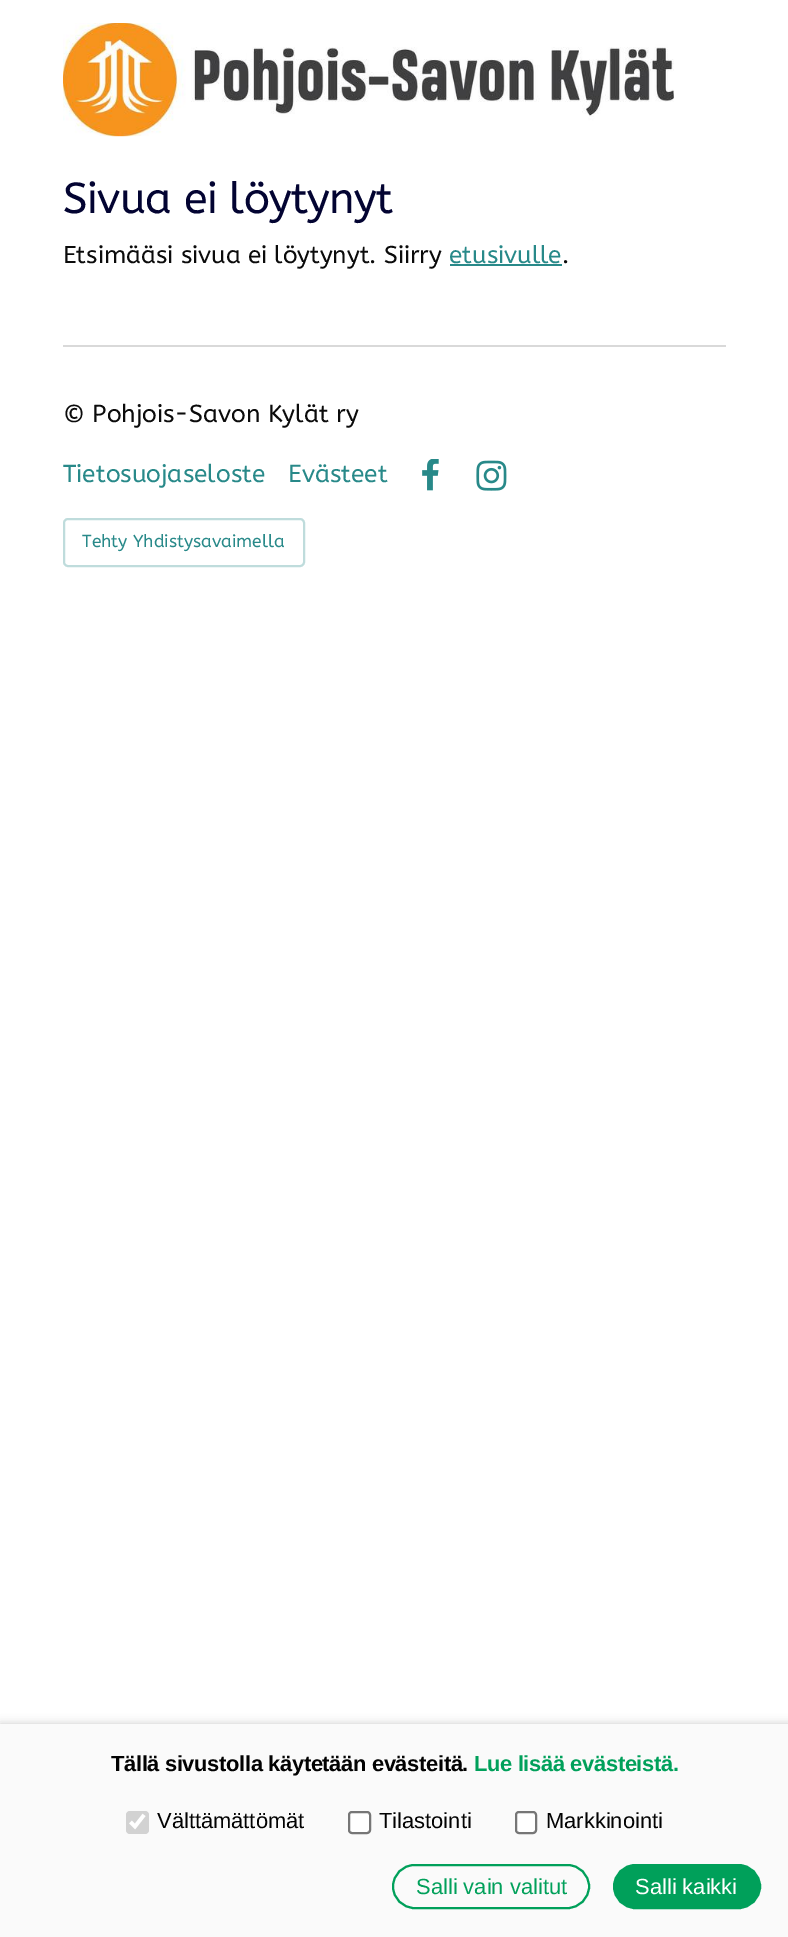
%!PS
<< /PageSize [788 1937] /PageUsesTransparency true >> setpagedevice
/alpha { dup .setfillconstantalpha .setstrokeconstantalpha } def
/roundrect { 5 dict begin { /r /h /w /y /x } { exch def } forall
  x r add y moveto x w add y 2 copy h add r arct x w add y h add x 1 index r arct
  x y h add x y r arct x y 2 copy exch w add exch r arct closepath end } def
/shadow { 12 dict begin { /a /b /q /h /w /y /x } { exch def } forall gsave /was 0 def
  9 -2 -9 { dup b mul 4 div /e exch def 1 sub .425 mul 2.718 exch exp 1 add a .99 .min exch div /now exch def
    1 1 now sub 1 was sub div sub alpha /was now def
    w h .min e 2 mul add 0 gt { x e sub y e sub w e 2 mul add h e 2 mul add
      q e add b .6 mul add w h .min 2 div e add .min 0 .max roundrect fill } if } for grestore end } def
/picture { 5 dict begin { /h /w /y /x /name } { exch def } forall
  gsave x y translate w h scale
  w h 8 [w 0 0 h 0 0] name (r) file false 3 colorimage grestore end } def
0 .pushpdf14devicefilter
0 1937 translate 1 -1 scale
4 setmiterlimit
1 setgray
0 0 788 1937 rectfill
(img1.rgb) 63 23 611 114 picture
/ABeeZee-Regular [43.25 0 0 -43.25 0 0] selectfont
0.012 0.016 0.196 setrgbcolor
63 213 moveto -0.6 0 (Sivua ei löytynyt) ashow
/ABeeZee-Regular [24.3 0 0 -24.3 0 0] selectfont
0.043 setgray
63 263 moveto (Etsimääsi sivua ei löytynyt. Siirry) show
0.157 0.537 0.537 setrgbcolor
449 263 moveto (etusivulle) show
450 264 112 2 rectfill
0.043 setgray
562 263 moveto (.) show
0.851 setgray
63 345 663 2 rectfill
/ABeeZee-Regular [24.5 0 0 -24.5 0 0] selectfont
0.043 setgray
63 422 moveto (© Pohjois-Savon Kylät ry) show
0.157 0.537 0.537 setrgbcolor
63 482 moveto (Tietosuojaseloste) show
288 482 moveto (Evästeet) show
(img2.rgb) 422 459 17 32 picture
(img3.rgb) 476 460 31 31 picture
0.749 0.863 0.863 setrgbcolor
2 setlinewidth
64 519 240 47 4 roundrect stroke
/ABeeZee-Regular [17.5 0 0 -17.5 0 0] selectfont
0.157 0.537 0.537 setrgbcolor
82 547 moveto (Tehty Yhdistysavaimella) show
0 setgray
0 1724 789 213 0 4.5 0.2 shadow
0.98 setgray
0 1724 788 213 rectfill
/LiberationSans-Bold [21.9 0 0 -21.9 0 0] selectfont
0.008 setgray
111 1771 moveto -0.35 0 (Tällä sivustolla käytetään evästeitä.) ashow
0 0.627 0.353 setrgbcolor
474 1771 moveto -0.35 0 (Lue lisää evästeistä.) ashow
0.824 setgray
126 1811 23 23 4 roundrect fill
1 setgray
3.6 setlinewidth
newpath 130.5 1822 moveto 135 1826.5 lineto 144 1815 lineto stroke
/LiberationSans-Regular [21.9 0 0 -21.9 0 0] selectfont
0.008 setgray
157 1828 moveto (Välttämättömät) show
1 setgray
349 1812 21 21 3 roundrect gsave fill grestore
0.463 setgray
2 setlinewidth
stroke
0.008 setgray
379 1828 moveto (Tilastointi) show
1 setgray
516 1812 20 21 3 roundrect gsave fill grestore
0.463 setgray
stroke
0.008 setgray
546 1828 moveto (Markkinointi) show
0 0.627 0.353 setrgbcolor
393 1865 196 43 21.5 roundrect stroke
416 1894 moveto (Salli vain valitut) show
614 1865 146 43 21.5 roundrect gsave fill grestore
stroke
1 setgray
635 1894 moveto (Salli kaikki) show
.poppdf14devicefilter showpage
